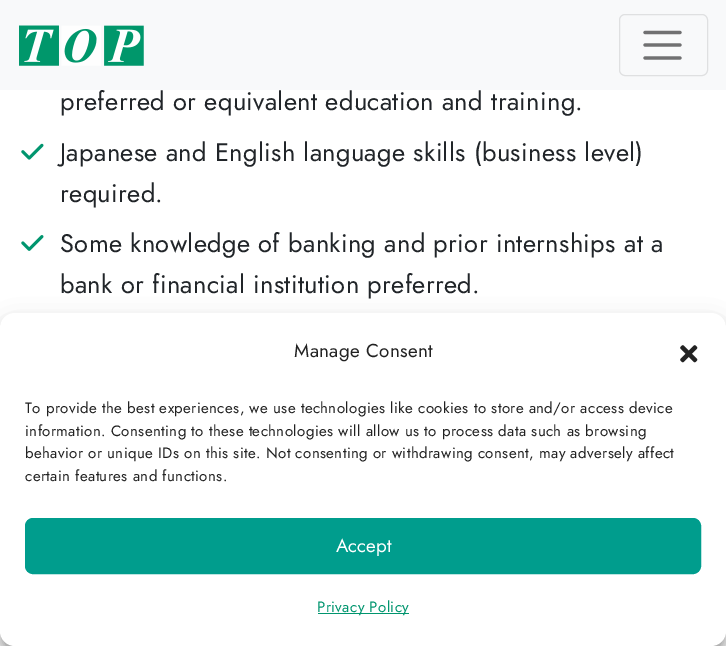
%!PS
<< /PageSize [726 646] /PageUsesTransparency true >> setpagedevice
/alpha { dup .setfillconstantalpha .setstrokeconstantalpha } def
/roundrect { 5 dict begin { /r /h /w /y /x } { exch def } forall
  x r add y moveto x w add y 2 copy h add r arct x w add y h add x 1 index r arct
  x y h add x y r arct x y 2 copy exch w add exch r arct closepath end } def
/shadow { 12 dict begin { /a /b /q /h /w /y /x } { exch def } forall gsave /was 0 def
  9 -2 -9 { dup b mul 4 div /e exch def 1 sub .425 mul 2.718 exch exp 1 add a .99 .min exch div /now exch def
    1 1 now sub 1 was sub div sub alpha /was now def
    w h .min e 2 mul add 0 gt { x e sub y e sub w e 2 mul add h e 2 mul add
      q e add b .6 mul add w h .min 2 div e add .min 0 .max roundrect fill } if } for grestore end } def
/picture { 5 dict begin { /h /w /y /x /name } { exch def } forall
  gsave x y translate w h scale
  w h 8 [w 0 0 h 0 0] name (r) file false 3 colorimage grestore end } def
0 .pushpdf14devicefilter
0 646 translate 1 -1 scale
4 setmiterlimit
1 setgray
0 0 726 646 rectfill
/Jost-Regular [25.4 0 0 -25.4 0 0] selectfont
0.129 0.145 0.161 setrgbcolor
60 110 moveto 0.38 0 (preferred or equivalent education and training.) ashow
0.973 0.976 0.98 setrgbcolor
0 0 726 90 rectfill
(img1.rgb) 19 25 125 41 picture
0.875 0.878 0.882 setrgbcolor
619.5 14.5 88 61 5.5 roundrect stroke
0.439 0.439 0.443 setrgbcolor
3.2 setlinewidth
1 setlinecap
newpath 645 32.5 moveto 680 32.5 lineto 645 45 moveto 680 45 lineto 645 58 moveto 680 58 lineto stroke
(img2.rgb) 21 143 23 17 picture
0.129 0.145 0.161 setrgbcolor
60 161 moveto 0.38 0 (Japanese and English language skills \(business level\)) ashow
60 202 moveto 0.38 0 (required.) ashow
(img3.rgb) 21 235 23 16 picture
60 252 moveto 0.38 0 (Some knowledge of banking and prior internships at a) ashow
60 293 moveto 0.38 0 (bank or financial institution preferred.) ashow
0 setgray
0 320 726 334 15 4 0.23 shadow
0 325 726 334 15 12.5 0.19 shadow
1 setgray
0 313 726 333 15 roundrect fill
/Jost-Regular [18.75 0 0 -18.75 0 0] selectfont
0.133 setgray
294 357 moveto 0.38 0 (Manage Consent) ashow
(img4.rgb) 680 345 18 18 picture
/Jost-Regular [15 0 0 -15 0 0] selectfont
25 413 moveto 0.38 0 (To provide the best experiences, we use technologies like cookies to store and/or access device) ashow
25 436 moveto 0.38 0 (information. Consenting to these technologies will allow us to process data such as browsing) ashow
25 458 moveto 0.38 0 (behavior or unique IDs on this site. Not consenting or withdrawing consent, may adversely affect) ashow
25 481 moveto 0.38 0 (certain features and functions.) ashow
0 0.616 0.553 setrgbcolor
25.5 518.5 675 55 7.5 roundrect gsave fill grestore
1 setlinewidth
0 setlinecap
stroke
/Jost-Regular [18.75 0 0 -18.75 0 0] selectfont
1 setgray
336 552 moveto (Accept) show
0 0.584 0.431 setrgbcolor
318 613 91 1 rectfill
/Jost-Regular [15 0 0 -15 0 0] selectfont
317 612 moveto 0.38 0 (Privacy Policy) ashow
.poppdf14devicefilter showpage
